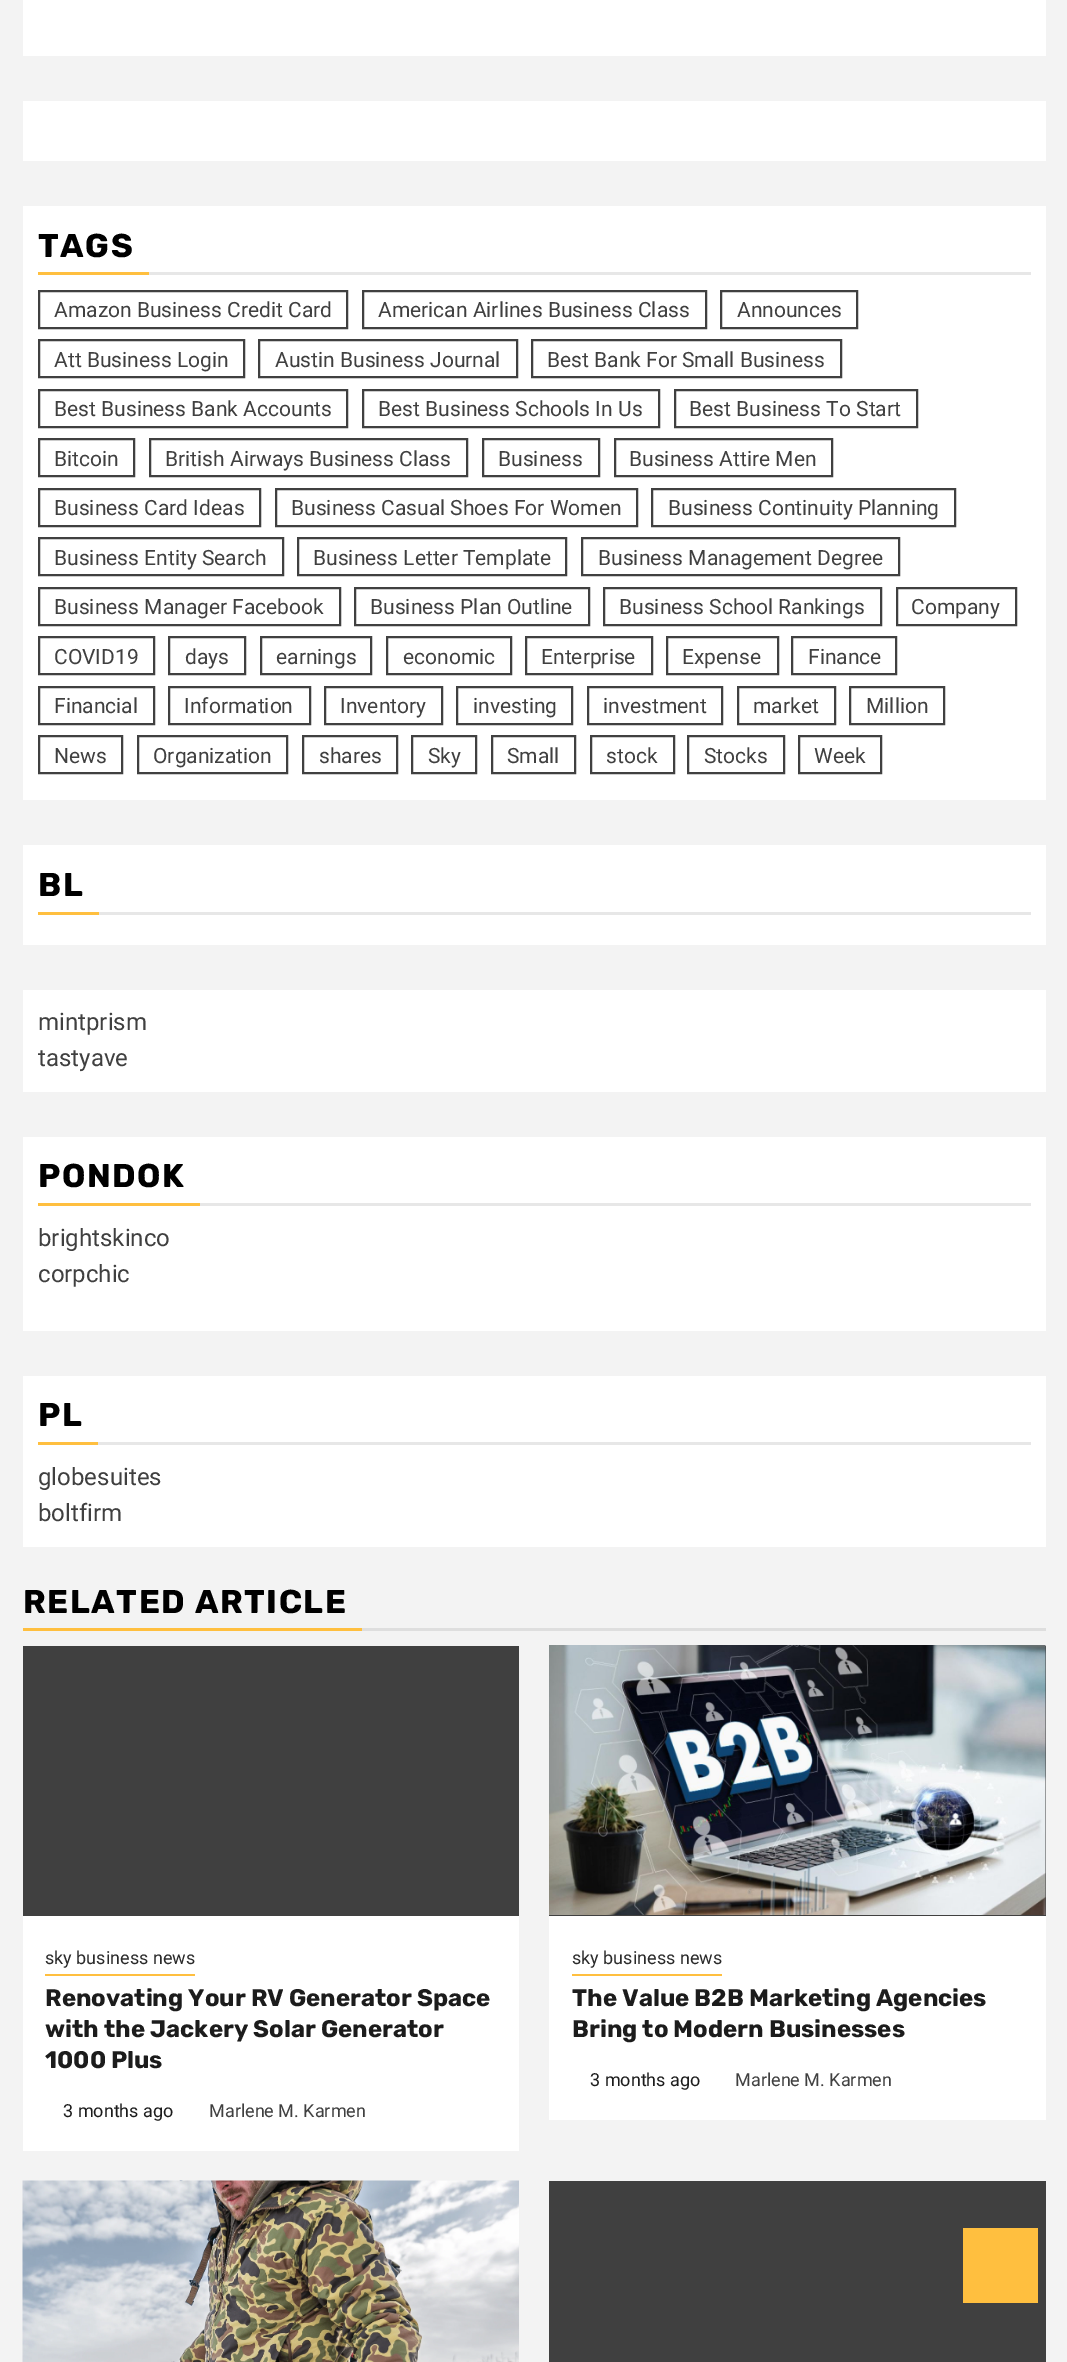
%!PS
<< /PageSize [1067 2362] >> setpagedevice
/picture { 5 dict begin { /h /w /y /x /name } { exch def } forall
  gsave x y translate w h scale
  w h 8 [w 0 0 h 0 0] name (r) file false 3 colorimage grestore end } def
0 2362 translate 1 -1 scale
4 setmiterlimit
0.953 setgray
0 0 1067 2362 rectfill
1 setgray
23 0 1023 56 rectfill
23 101 1023 60 rectfill
23 206 1023 594 rectfill
1 0.749 0.247 setrgbcolor
38 272 111 3 rectfill
/Rubik-Bold [33 0 0 -33 0 0] selectfont
0 setgray
38 257 moveto 1.5 0 (TAGS) ashow
0.906 setgray
149 272 882 3 rectfill
0.251 setgray
2 setlinewidth
39 291 308 37 rectstroke
/Roboto-Regular [21 0 0 -21 0 0] selectfont
54 317 moveto (Amazon Business Credit Card) show
363 291 343 37 rectstroke
378 317 moveto (American Airlines Business Class) show
721 291 136 37 rectstroke
737 317 moveto (Announces) show
39 340 205 37 rectstroke
54 367 moveto (Att Business Login) show
259 340 258 37 rectstroke
275 367 moveto (Austin Business Journal) show
532 340 309 37 rectstroke
547 367 moveto (Best Bank For Small Business) show
39 390 308 37 rectstroke
54 416 moveto (Best Business Bank Accounts) show
363 390 296 37 rectstroke
378 416 moveto (Best Business Schools In Us) show
675 390 242 37 rectstroke
689 416 moveto (Best Business To Start) show
39 439 95 37 rectstroke
54 466 moveto (Bitcoin) show
150 439 317 37 rectstroke
165 466 moveto (British Airways Business Class) show
483 439 116 37 rectstroke
498 466 moveto (Business) show
615 439 217 37 rectstroke
629 466 moveto (Business Attire Men) show
39 489 221 37 rectstroke
54 515 moveto (Business Card Ideas) show
276 489 361 37 rectstroke
291 515 moveto (Business Casual Shoes For Women) show
652 489 303 37 rectstroke
668 515 moveto (Business Continuity Planning) show
39 538 244 37 rectstroke
54 565 moveto (Business Entity Search) show
298 538 268 37 rectstroke
313 565 moveto (Business Letter Template) show
582 538 317 37 rectstroke
598 565 moveto (Business Management Degree) show
39 588 301 37 rectstroke
54 614 moveto (Business Manager Facebook) show
355 588 234 37 rectstroke
370 614 moveto (Business Plan Outline) show
604 588 277 37 rectstroke
619 614 moveto (Business School Rankings) show
897 588 119 37 rectstroke
911 614 moveto (Company) show
39 637 115 37 rectstroke
54 664 moveto (COVID19) show
169 637 76 37 rectstroke
185 664 moveto (days) show
261 637 110 37 rectstroke
276 664 moveto (earnings) show
387 637 124 37 rectstroke
403 664 moveto (economic) show
526 637 126 37 rectstroke
541 664 moveto (Enterprise) show
667 637 111 37 rectstroke
682 664 moveto (Expense) show
792 637 104 37 rectstroke
808 664 moveto (Finance) show
39 687 115 37 rectstroke
54 713 moveto (Financial) show
169 687 141 37 rectstroke
184 713 moveto (Information) show
325 687 117 37 rectstroke
340 713 moveto (Inventory) show
457 687 115 37 rectstroke
473 713 moveto (investing) show
588 687 134 37 rectstroke
603 713 moveto (investment) show
738 687 97 37 rectstroke
753 713 moveto (market) show
850 687 94 37 rectstroke
866 713 moveto (Million) show
39 736 83 37 rectstroke
54 763 moveto (News) show
138 736 149 37 rectstroke
153 763 moveto (Organization) show
303 736 94 37 rectstroke
319 763 moveto (shares) show
412 736 64 37 rectstroke
428 763 moveto (Sky) show
492 736 83 37 rectstroke
507 763 moveto (Small) show
591 736 83 37 rectstroke
606 763 moveto (stock) show
688 736 96 37 rectstroke
704 763 moveto (Stocks) show
799 736 82 37 rectstroke
814 763 moveto (Week) show
1 setgray
23 845 1023 100 rectfill
1 0.749 0.247 setrgbcolor
38 912 61 3 rectfill
/Rubik-Bold [33 0 0 -33 0 0] selectfont
0 setgray
38 896 moveto 1.5 0 (BL) ashow
0.906 setgray
99 912 932 3 rectfill
1 setgray
23 990 1023 102 rectfill
/Roboto-Regular [24 0 0 -24 0 0] selectfont
0.251 setgray
38 1030 moveto (mintprism) show
38 1066 moveto (tastyave) show
1 setgray
23 1137 1023 194 rectfill
1 0.749 0.247 setrgbcolor
38 1203 162 3 rectfill
/Rubik-Bold [33 0 0 -33 0 0] selectfont
0 setgray
38 1187 moveto 1.5 0 (PONDOK) ashow
0.906 setgray
200 1203 831 3 rectfill
/Roboto-Regular [24 0 0 -24 0 0] selectfont
0.251 setgray
38 1246 moveto (brightskinco) show
38 1282 moveto (corpchic) show
1 setgray
23 1376 1023 171 rectfill
1 0.749 0.247 setrgbcolor
38 1442 60 3 rectfill
/Rubik-Bold [33 0 0 -33 0 0] selectfont
0 setgray
38 1426 moveto 1.5 0 (PL) ashow
0.906 setgray
98 1442 933 3 rectfill
/Roboto-Regular [24 0 0 -24 0 0] selectfont
0.251 setgray
38 1485 moveto (globesuites) show
38 1521 moveto (boltfirm) show
1 0.749 0.247 setrgbcolor
23 1628 339 3 rectfill
/Rubik-Bold [33 0 0 -33 0 0] selectfont
0 setgray
23 1613 moveto 1.5 0 (RELATED ARTICLE) ashow
0.871 setgray
362 1628 684 3 rectfill
1 setgray
23 1916 496 235 rectfill
0.251 setgray
23 1646 496 270 rectfill
1 0.749 0.247 setrgbcolor
45 1974 150 2 rectfill
/Roboto-Regular [18 0 0 -18 0 0] selectfont
0.169 setgray
45 1964 moveto (sky business news) show
/Rubik-Bold [24 0 0 -24 0 0] selectfont
0.11 setgray
45 2006 moveto (Renovating Your RV Generator Space) show
45 2037 moveto (with the Jackery Solar Generator) show
45 2068 moveto (1000 Plus) show
/Roboto-Regular [18 0 0 -18 0 0] selectfont
63 2117 moveto (3 months ago) show
0.251 setgray
209 2117 moveto (Marlene M. Karmen) show
1 setgray
549 1916 497 204 rectfill
0.251 setgray
549 1646 497 270 rectfill
(img1.rgb) 549 1645 497 270 picture
1 0.749 0.247 setrgbcolor
572 1974 150 2 rectfill
0.169 setgray
572 1964 moveto (sky business news) show
/Rubik-Bold [24 0 0 -24 0 0] selectfont
0.11 setgray
572 2006 moveto (The Value B2B Marketing Agencies) show
572 2037 moveto (Bring to Modern Businesses) show
/Roboto-Regular [18 0 0 -18 0 0] selectfont
590 2086 moveto (3 months ago) show
0.251 setgray
735 2086 moveto (Marlene M. Karmen) show
(img2.rgb) 22 2180 497 182 picture
549 2181 497 181 rectfill
1 0.749 0.247 setrgbcolor
963 2228 75 75 rectfill
showpage
